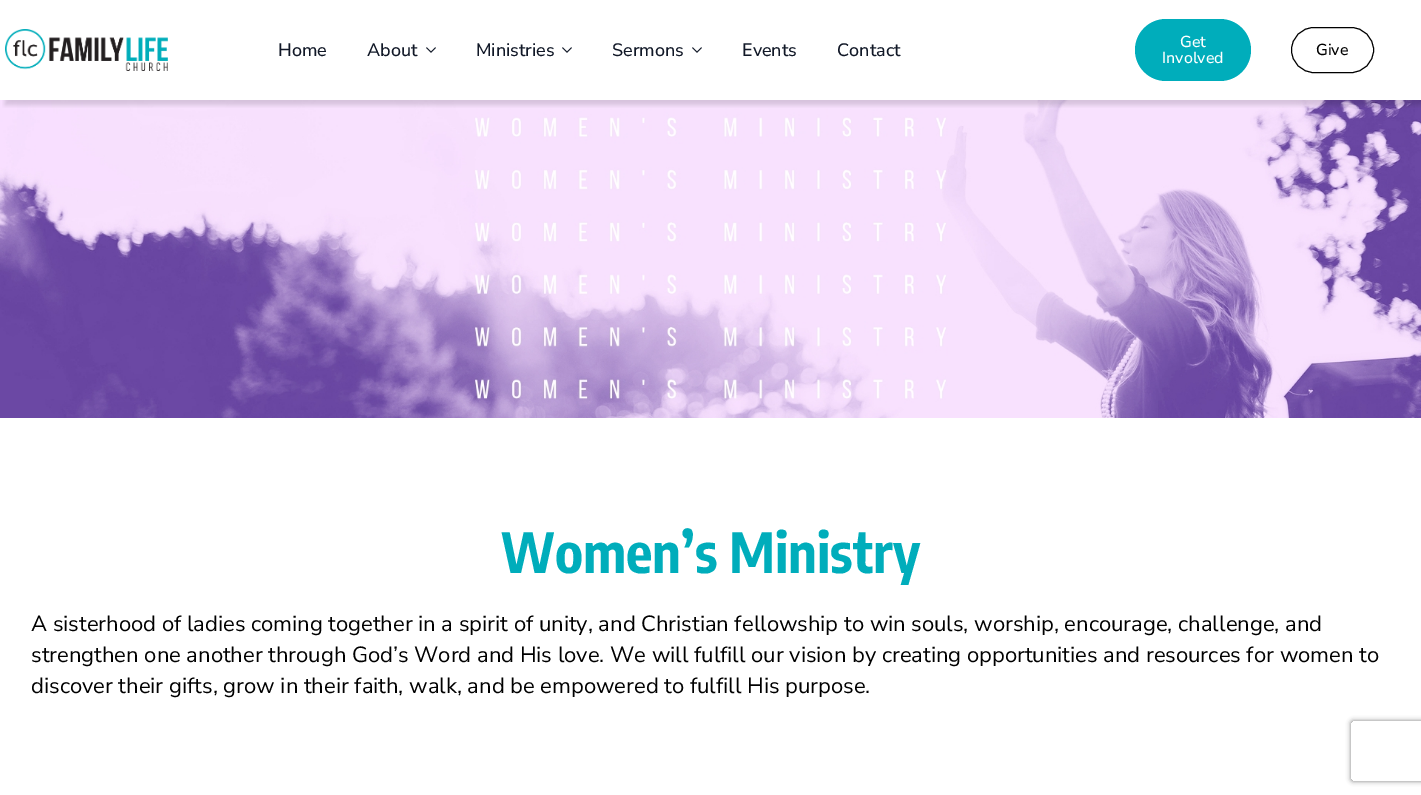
%!PS
<< /PageSize [1421 795] /PageUsesTransparency true >> setpagedevice
/alpha { dup .setfillconstantalpha .setstrokeconstantalpha } def
/roundrect { 5 dict begin { /r /h /w /y /x } { exch def } forall
  x r add y moveto x w add y 2 copy h add r arct x w add y h add x 1 index r arct
  x y h add x y r arct x y 2 copy exch w add exch r arct closepath end } def
/shadow { 12 dict begin { /a /b /q /h /w /y /x } { exch def } forall gsave /was 0 def
  9 -2 -9 { dup b mul 4 div /e exch def 1 sub .425 mul 2.718 exch exp 1 add a .99 .min exch div /now exch def
    1 1 now sub 1 was sub div sub alpha /was now def
    w h .min e 2 mul add 0 gt { x e sub y e sub w e 2 mul add h e 2 mul add
      q e add b .6 mul add w h .min 2 div e add .min 0 .max roundrect fill } if } for grestore end } def
/picture { 5 dict begin { /h /w /y /x /name } { exch def } forall
  gsave x y translate w h scale
  w h 8 [w 0 0 h 0 0] name (r) file false 3 colorimage grestore end } def
0 .pushpdf14devicefilter
0 795 translate 1 -1 scale
4 setmiterlimit
1 setgray
0 0 1421 795 rectfill
(img3.rgb) 0 100 1421 318 picture
gsave
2 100 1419 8 rectclip
0 setgray
5 5 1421 100 0 2.5 0.14 shadow
grestore
(img1.rgb) 5 29 163 42 picture
/NunitoSans-Medium [18 0 0 -18 0 0] selectfont
0.067 0.094 0.153 setrgbcolor
278 56 moveto (Home) show
367 56 moveto (About) show
(img2.rgb) 426 47 10 6 picture
476 56 moveto (Ministries) show
(img2.rgb) 562 47 10 6 picture
612 56 moveto (Sermons) show
(img2.rgb) 692 47 10 6 picture
742 56 moveto (Events) show
837 56 moveto (Contact) show
0 0.678 0.733 setrgbcolor
1135 19 116 62 31 roundrect fill
/NunitoSans-Medium [16 0 0 -16 0 0] selectfont
1 setgray
1180 47 moveto (Get) show
1162 63 moveto (Involved) show
0 setgray
1291.5 27.5 82 45 22.5 roundrect stroke
1316 55 moveto (Give) show
/EncodeSansCondensed-Bold [55 0 0 -55 0 0] selectfont
0 0.678 0.733 setrgbcolor
501 573 moveto (Women’s Ministry) show
/NunitoSans-Regular [22 0 0 -22 0 0] selectfont
0 setgray
31 631 moveto (A sisterhood of ladies coming together in a spirit of unity, and Christian fellowship to win souls, worship, encourage, challenge, and) show
31 662 moveto (strengthen one another through God’s Word and His love. We will fulfill our vision by creating opportunities and resources for women to) show
31 693 moveto (discover their gifts, grow in their faith, walk, and be empowered to fulfill His purpose.) show
gsave
newpath 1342 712 moveto 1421 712 lineto 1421 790 lineto 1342 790 lineto closepath 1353 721 moveto 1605 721 lineto 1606 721 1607 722 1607 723 curveto 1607 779 lineto 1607 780 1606 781 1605 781 curveto 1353 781 lineto 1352 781 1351 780 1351 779 curveto 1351 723 lineto 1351 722 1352 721 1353 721 curveto closepath eoclip newpath
0.502 setgray
1351 721 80 60 2 2.5 1 shadow
grestore
.poppdf14devicefilter showpage
